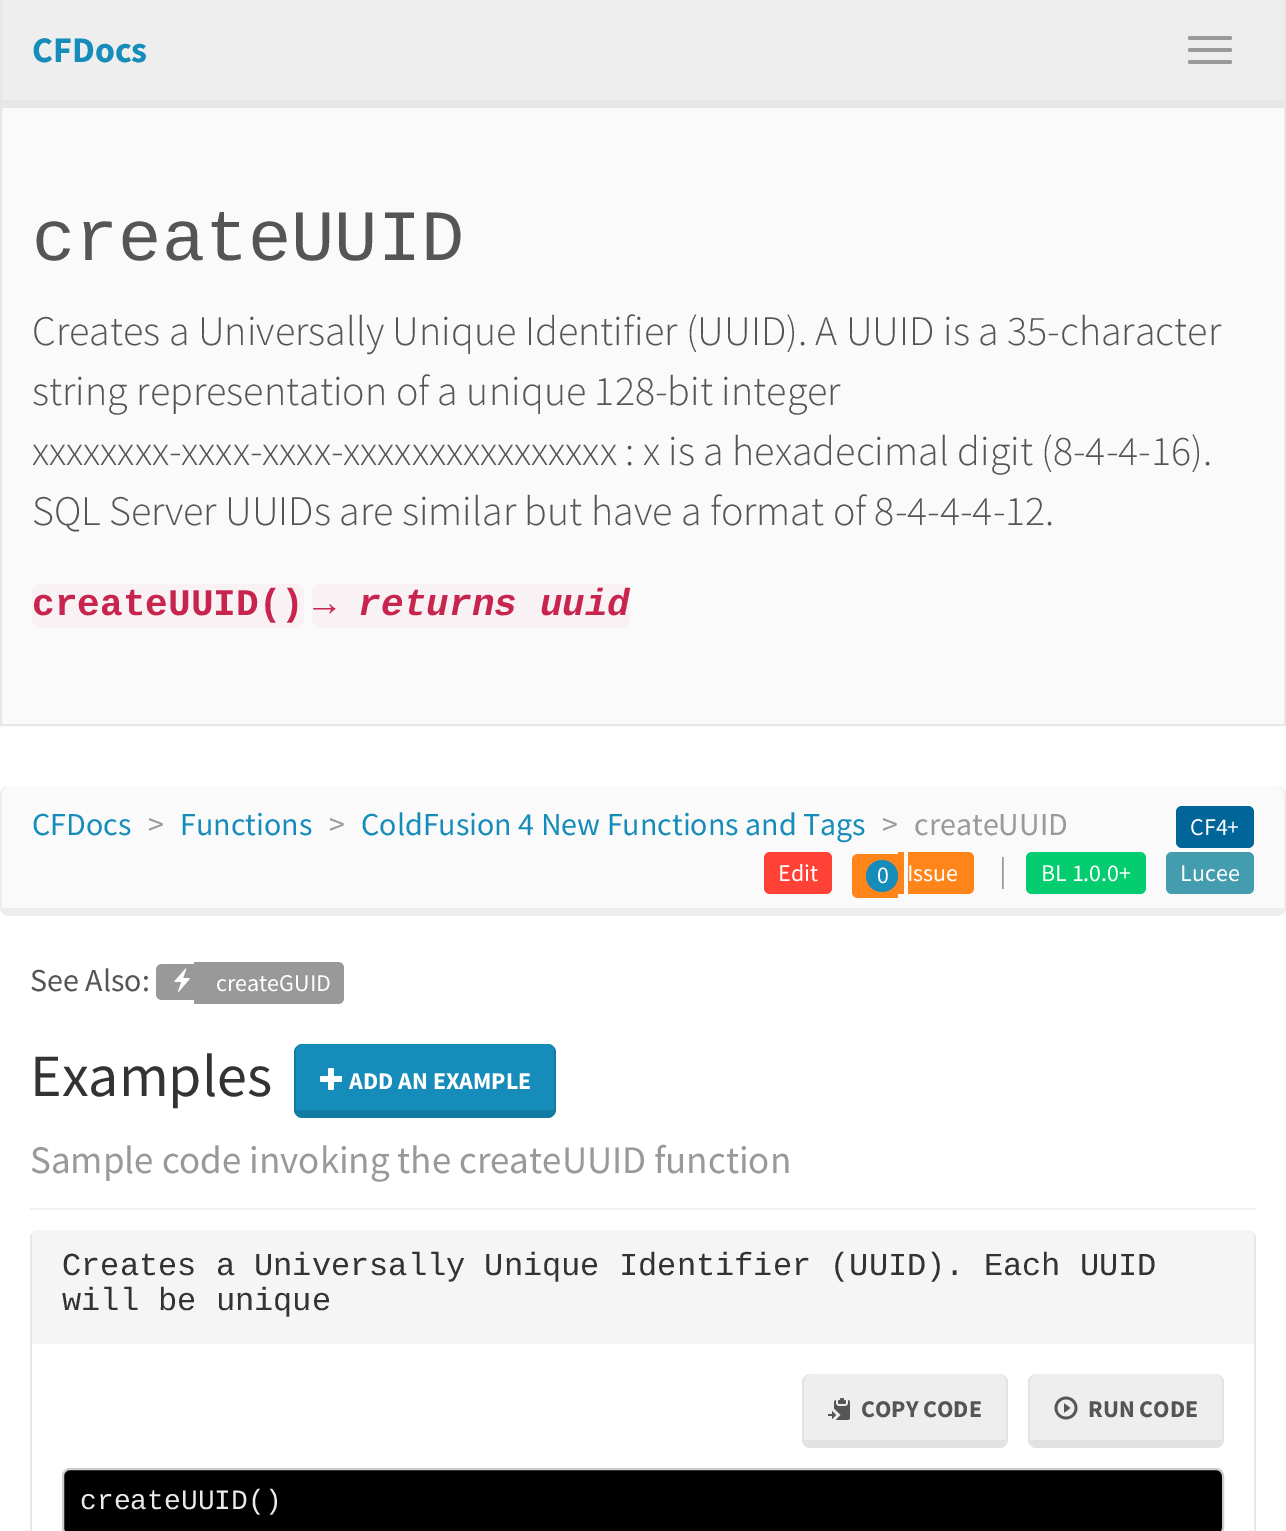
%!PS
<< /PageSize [1286 1531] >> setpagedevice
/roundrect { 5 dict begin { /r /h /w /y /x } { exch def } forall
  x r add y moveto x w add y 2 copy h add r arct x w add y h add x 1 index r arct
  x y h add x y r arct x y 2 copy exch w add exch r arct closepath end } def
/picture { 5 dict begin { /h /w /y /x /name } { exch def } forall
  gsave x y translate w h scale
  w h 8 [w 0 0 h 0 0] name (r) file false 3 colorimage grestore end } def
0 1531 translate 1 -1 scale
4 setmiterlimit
1 setgray
0 0 1286 1531 rectfill
0.933 setgray
2 0 1282 100 rectfill
0.98 setgray
2 108 1282 616 rectfill
0.906 setgray
2 setlinewidth
1 101 1284 624 rectstroke
1284 0 2 108 rectfill
0 102 1286 6 rectfill
0 0 2 108 rectfill
/SourceSansPro-Bold [36 0 0 -36 0 0] selectfont
0.082 0.549 0.729 setrgbcolor
32 62 moveto (CFDocs) show
0.6 setgray
1188 36 44 4 2 roundrect fill
1188 48 44 4 2 roundrect fill
1188 60 44 4 2 roundrect fill
/LiberationMono-Regular [72 0 0 -72 0 0] selectfont
0.333 setgray
32 260 moveto (createUUID) show
/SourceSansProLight-Light [42 0 0 -42 0 0] selectfont
32 345 moveto (Creates a Universally Unique Identifier \(UUID\). A UUID is a 35-character) show
32 405 moveto (string representation of a unique 128-bit integer) show
32 465 moveto (xxxxxxxx-xxxx-xxxx-xxxxxxxxxxxxxxxx : x is a hexadecimal digit \(8-4-4-16\).) show
32 525 moveto (SQL Server UUIDs are similar but have a format of 8-4-4-4-12.) show
0.976 0.949 0.957 setrgbcolor
32 584 272 44 8 roundrect fill
/LiberationMono-Bold [37.75 0 0 -37.75 0 0] selectfont
0.78 0.145 0.306 setrgbcolor
32 615 moveto (createUUID\(\)) show
0.976 0.949 0.957 setrgbcolor
312 584 318 44 8 roundrect fill
/LiberationMono-BoldItalic [37.75 0 0 -37.75 0 0] selectfont
0.78 0.145 0.306 setrgbcolor
313 615 moveto (→ returns uuid) show
0.98 setgray
newpath 8 786 moveto 1278 786 lineto 1281 786 1284 790 1284 794 curveto 1284 908 lineto 2 908 lineto 2 794 lineto 2 790 5 786 8 786 curveto closepath fill
0.929 setgray
newpath 8 786 moveto 1278 786 lineto 1282 786 1286 790 1286 794 curveto 1286 908 lineto 1286 912 1282 916 1278 916 curveto 8 916 lineto 4 916 0 912 0 908 curveto 0 794 lineto 0 790 4 786 8 786 curveto closepath 8 786 moveto 1278 786 lineto 1281 786 1284 790 1284 794 curveto 1284 908 lineto 2 908 lineto 2 794 lineto 2 790 5 786 8 786 curveto closepath eofill
/SourceSansPro-Regular [32 0 0 -32 0 0] selectfont
0.082 0.549 0.729 setrgbcolor
32 835 moveto (CFDocs) show
0.6 setgray
148 835 moveto (>) show
0.082 0.549 0.729 setrgbcolor
180 835 moveto (Functions) show
0.6 setgray
329 835 moveto (>) show
0.082 0.549 0.729 setrgbcolor
361 835 moveto (ColdFusion 4 New Functions and Tags) show
0.6 setgray
882 835 moveto (>) show
914 835 moveto (createUUID) show
0 0.4 0.6 setrgbcolor
1176 806 78 42 6 roundrect fill
/SourceSansPro-Regular [24 0 0 -24 0 0] selectfont
1 setgray
1190 835 moveto (CF4+) show
1 0.255 0.212 setrgbcolor
764 852 68 42 6 roundrect fill
1 setgray
778 881 moveto (Edit) show
1 0.522 0.106 setrgbcolor
newpath 858 854 moveto 898 854 lineto 898 898 lineto 858 898 lineto 854.5 898 852 895.5 852 892 curveto 852 860 lineto 852 856.5 854.5 854 858 854 curveto closepath fill
898 852 6 42 rectfill
newpath 908 852 moveto 968 852 lineto 971.5 852 974 854.5 974 858 curveto 974 888 lineto 974 891.5 971.5 894 968 894 curveto 908 894 lineto closepath fill
0.082 0.549 0.729 setrgbcolor
newpath 882 876 16 0 360 arc closepath fill
1 setgray
877 883 moveto (0) show
907 881 moveto (Issue) show
/SourceSansPro-Regular [32 0 0 -32 0 0] selectfont
0.6 setgray
999 881 moveto (|) show
0.016 0.804 0.439 setrgbcolor
1026 852 120 42 6 roundrect fill
/SourceSansPro-Regular [24 0 0 -24 0 0] selectfont
1 setgray
1041 881 moveto (BL 1.0.0+) show
0.267 0.612 0.686 setrgbcolor
1166 852 88 42 6 roundrect fill
1 setgray
1180 881 moveto (Lucee) show
/SourceSansPro-Regular [32 0 0 -32 0 0] selectfont
0.333 setgray
30 991 moveto (See Also:) show
0.6 setgray
newpath 162 964 moveto 194 964 lineto 194 1000 lineto 162 1000 lineto 158.5 1000 156 997.5 156 994 curveto 156 970 lineto 156 966.5 158.5 964 162 964 curveto closepath fill
newpath 194 962 moveto 338 962 lineto 341.5 962 344 964.5 344 968 curveto 344 998 lineto 344 1001.5 341.5 1004 338 1004 curveto 194 1004 lineto closepath fill
(img1.rgb) 174 968 16 24 picture
/SourceSansPro-Regular [24 0 0 -24 0 0] selectfont
1 setgray
216 991 moveto (createGUID) show
0.945 setgray
30 1208 1226 2 rectfill
/SourceSansPro-Regular [60 0 0 -60 0 0] selectfont
0.2 setgray
30 1096 moveto (Examples) show
0.082 0.549 0.729 setrgbcolor
newpath 302 1044 moveto 548 1044 lineto 551 1044 554 1048 554 1052 curveto 554 1110 lineto 296 1110 lineto 296 1052 lineto 296 1048 299 1044 302 1044 curveto closepath fill
0.071 0.482 0.639 setrgbcolor
newpath 302 1044 moveto 548 1044 lineto 552 1044 556 1048 556 1052 curveto 556 1110 lineto 556 1114 552 1118 548 1118 curveto 302 1118 lineto 298 1118 294 1114 294 1110 curveto 294 1052 lineto 294 1048 298 1044 302 1044 curveto closepath 302 1044 moveto 548 1044 lineto 551 1044 554 1048 554 1052 curveto 554 1110 lineto 296 1110 lineto 296 1052 lineto 296 1048 299 1044 302 1044 curveto closepath eofill
(img2.rgb) 320 1068 22 22 picture
/SourceSansPro-Bold [24 0 0 -24 0 0] selectfont
1 setgray
349 1089 moveto (ADD AN EXAMPLE) show
/SourceSansPro-Regular [39 0 0 -39 0 0] selectfont
0.6 setgray
30 1173 moveto (Sample code invoking the createUUID function) show
0.906 setgray
newpath 38 1230 moveto 1248 1230 lineto 1252 1230 1256 1234 1256 1238 curveto 1256 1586 lineto 1256 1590 1252 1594 1248 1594 curveto 38 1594 lineto 34 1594 30 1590 30 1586 curveto 30 1238 lineto 30 1234 34 1230 38 1230 curveto closepath 38 1230 moveto 1248 1230 lineto 1251 1230 1254 1234 1254 1238 curveto 1254 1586 lineto 32 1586 lineto 32 1238 lineto 32 1234 35 1230 38 1230 curveto closepath eofill
0.961 setgray
newpath 38 1230 moveto 1248 1230 lineto 1251.5 1230 1254 1232.5 1254 1236 curveto 1254 1344 lineto 32 1344 lineto 32 1236 lineto 32 1232.5 34.5 1230 38 1230 curveto closepath fill
/LiberationMono-Regular [32 0 0 -32 0 0] selectfont
0.2 setgray
62 1275 moveto (Creates a Universally Unique Identifier \(UUID\). Each UUID) show
62 1310 moveto (will be unique) show
0.933 setgray
newpath 810 1374 moveto 1000 1374 lineto 1003 1374 1006 1378 1006 1382 curveto 1006 1440 lineto 804 1440 lineto 804 1382 lineto 804 1378 807 1374 810 1374 curveto closepath fill
0.886 setgray
newpath 810 1374 moveto 1000 1374 lineto 1004 1374 1008 1378 1008 1382 curveto 1008 1440 lineto 1008 1444 1004 1448 1000 1448 curveto 810 1448 lineto 806 1448 802 1444 802 1440 curveto 802 1382 lineto 802 1378 806 1374 810 1374 curveto closepath 810 1374 moveto 1000 1374 lineto 1003 1374 1006 1378 1006 1382 curveto 1006 1440 lineto 804 1440 lineto 804 1382 lineto 804 1378 807 1374 810 1374 curveto closepath eofill
(img3.rgb) 828 1398 22 22 picture
/SourceSansPro-Bold [24 0 0 -24 0 0] selectfont
0.333 setgray
861 1417 moveto (COPY CODE) show
0.933 setgray
newpath 1036 1374 moveto 1216 1374 lineto 1219 1374 1222 1378 1222 1382 curveto 1222 1440 lineto 1030 1440 lineto 1030 1382 lineto 1030 1378 1033 1374 1036 1374 curveto closepath fill
0.886 setgray
newpath 1036 1374 moveto 1216 1374 lineto 1220 1374 1224 1378 1224 1382 curveto 1224 1440 lineto 1224 1444 1220 1448 1216 1448 curveto 1036 1448 lineto 1032 1448 1028 1444 1028 1440 curveto 1028 1382 lineto 1028 1378 1032 1374 1036 1374 curveto closepath 1036 1374 moveto 1216 1374 lineto 1219 1374 1222 1378 1222 1382 curveto 1222 1440 lineto 1030 1440 lineto 1030 1382 lineto 1030 1378 1033 1374 1036 1374 curveto closepath eofill
(img4.rgb) 1054 1396 24 24 picture
0.333 setgray
1088 1417 moveto (RUN CODE) show
0 setgray
63 1469 1160 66 7 roundrect gsave fill grestore
0.8 setgray
stroke
/LiberationMono-Regular [28 0 0 -28 0 0] selectfont
0.918 setgray
80 1509 moveto (createUUID\(\)) show
showpage
